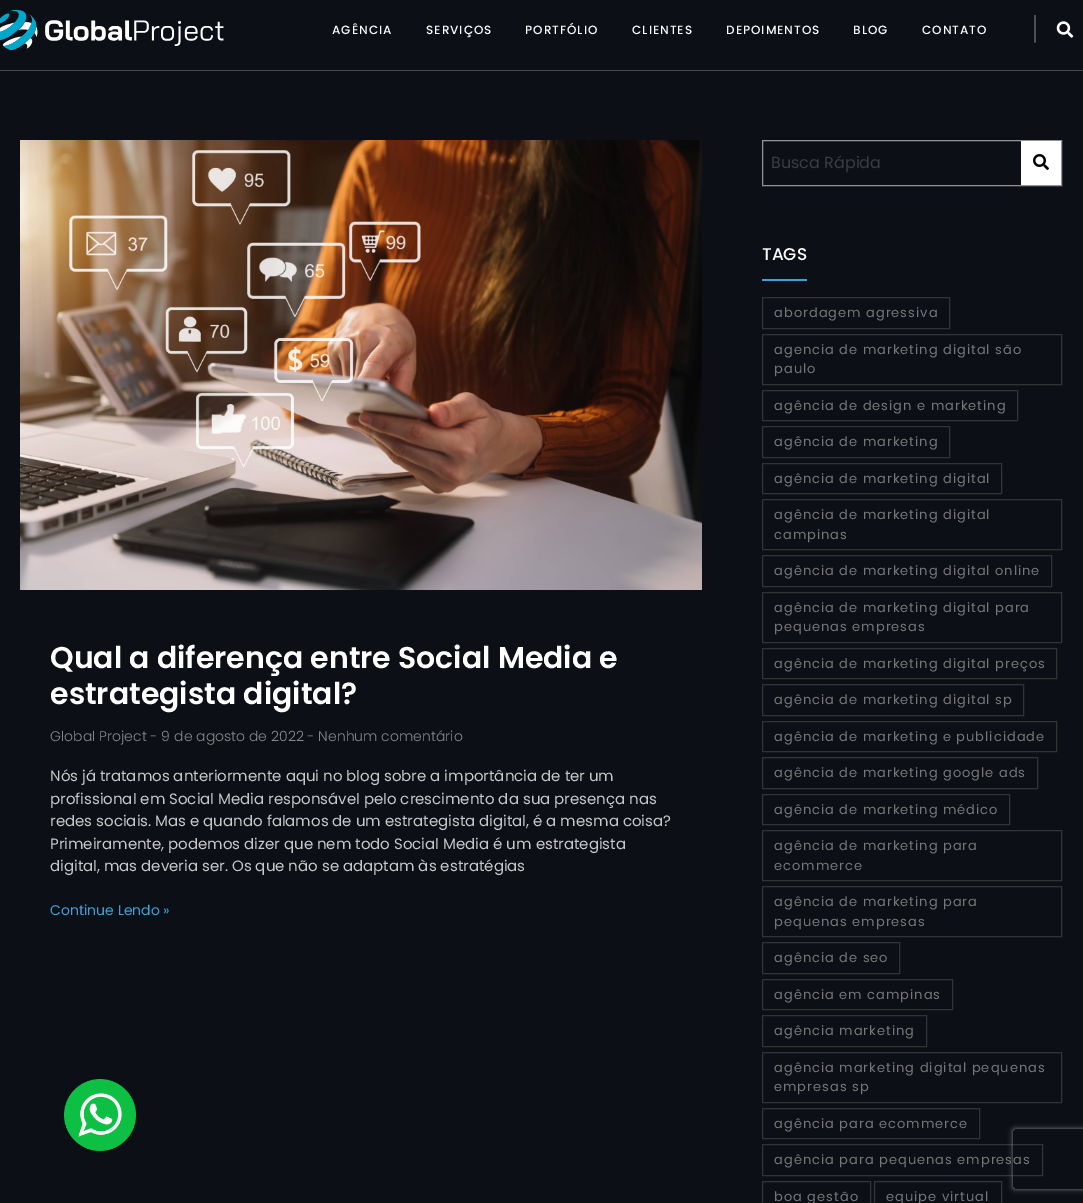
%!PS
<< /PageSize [1083 1203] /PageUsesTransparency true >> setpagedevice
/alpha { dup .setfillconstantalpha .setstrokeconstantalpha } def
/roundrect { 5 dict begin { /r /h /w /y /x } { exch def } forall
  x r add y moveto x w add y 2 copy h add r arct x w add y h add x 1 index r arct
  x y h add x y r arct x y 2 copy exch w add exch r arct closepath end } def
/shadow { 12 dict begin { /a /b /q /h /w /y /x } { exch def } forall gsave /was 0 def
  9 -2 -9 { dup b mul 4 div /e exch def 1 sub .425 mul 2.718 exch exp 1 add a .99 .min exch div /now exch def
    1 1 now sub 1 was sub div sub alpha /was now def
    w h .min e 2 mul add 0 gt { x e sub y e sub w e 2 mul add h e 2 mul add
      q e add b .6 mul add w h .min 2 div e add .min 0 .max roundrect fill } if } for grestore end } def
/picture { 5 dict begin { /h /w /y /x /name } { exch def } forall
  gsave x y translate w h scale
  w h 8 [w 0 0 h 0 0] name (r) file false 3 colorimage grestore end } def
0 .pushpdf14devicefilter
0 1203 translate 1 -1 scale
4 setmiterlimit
0.047 0.059 0.086 setrgbcolor
0 0 1083 1203 rectfill
0.275 0.286 0.306 setrgbcolor
0 70 1083 1 rectfill
(img1.rgb) 0 10 224 40 picture
/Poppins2-Medium [12 0 0 -12 0 0] selectfont
1 setgray
332 34 moveto 1 0 (AGÊNCIA) ashow
426 34 moveto 1 0 (SERVIÇOS) ashow
525 34 moveto 1 0 (PORTFÓLIO) ashow
632 34 moveto 1 0 (CLIENTES) ashow
726 34 moveto 1 0 (DEPOIMENTOS) ashow
853 34 moveto 1 0 (BLOG) ashow
922 34 moveto 1 0 (CONTATO) ashow
/Poppins-Thin [32 0 0 -32 0 0] selectfont
1032 40 moveto (|) show
(img2.rgb) 1056 21 18 17 picture
(img3.rgb) 64 1079 72 72 picture
(img4.rgb) 20 140 682 450 picture
/Poppins-SemiBold [30 0 0 -30 0 0] selectfont
50 668 moveto (Qual a diferença entre Social Media e) show
50 704 moveto (estrategista digital?) show
/Poppins-Light [14 0 0 -14 0 0] selectfont
0.533 setgray
50 741 moveto (Global Project - 9 de agosto de 2022 - Nenhum comentário) show
/Poppins-Regular [15 0 0 -15 0 0] selectfont
0.784 setgray
50 781 moveto (Nós já tratamos anteriormente aqui no blog sobre a importância de ter um) show
50 804 moveto (profissional em Social Media responsável pelo crescimento da sua presença nas) show
50 826 moveto (redes sociais. Mas e quando falamos de um estrategista digital, é a mesma coisa?) show
50 849 moveto (Primeiramente, podemos dizer que nem todo Social Media é um estrategista) show
50 871 moveto (digital, mas deveria ser. Os que não se adaptam às estratégias) show
/Poppins-Regular [14 0 0 -14 0 0] selectfont
0.235 0.631 0.859 setrgbcolor
50 915 moveto (Continue Lendo ») show
0.58 setgray
762.5 140.5 299 45 rectstroke
/Poppins-Regular [16 0 0 -16 0 0] selectfont
0.227 0.235 0.251 setrgbcolor
771 168 moveto (Busca Rápida) show
1 setgray
1021 141 40 44 rectfill
(img5.rgb) 1033 154 16 16 picture
0.235 0.631 0.859 setrgbcolor
762 279 45 2 rectfill
/Poppins-Medium [17 0 0 -17 0 0] selectfont
1 setgray
762 260 moveto (TAGS) show
0.2 setgray
762.5 297.5 187 31 rectstroke
/Poppins-Regular [13 0 0 -13 0 0] selectfont
0.467 setgray
774 317 moveto 1 0 (abordagem agressiva) ashow
0.2 setgray
762.5 334.5 299 50 rectstroke
0.467 setgray
774 354 moveto 1 0 (agencia de marketing digital são) ashow
774 373 moveto 1 0 (paulo) ashow
0.2 setgray
762.5 390.5 255 30 rectstroke
0.467 setgray
774 410 moveto 1 0 (agência de design e marketing) ashow
0.2 setgray
762.5 426.5 187 31 rectstroke
0.467 setgray
774 446 moveto 1 0 (agência de marketing) ashow
0.2 setgray
762.5 463.5 239 30 rectstroke
0.467 setgray
774 483 moveto 1 0 (agência de marketing digital) ashow
0.2 setgray
762.5 499.5 299 50 rectstroke
0.467 setgray
774 519 moveto 1 0 (agência de marketing digital) ashow
774 539 moveto 1 0 (campinas) ashow
0.2 setgray
762.5 555.5 289 31 rectstroke
0.467 setgray
774 575 moveto 1 0 (agência de marketing digital online) ashow
0.2 setgray
762.5 592.5 299 50 rectstroke
0.467 setgray
774 612 moveto 1 0 (agência de marketing digital para) ashow
774 631 moveto 1 0 (pequenas empresas) ashow
0.2 setgray
762.5 648.5 294 30 rectstroke
0.467 setgray
774 668 moveto 1 0 (agência de marketing digital preços) ashow
0.2 setgray
762.5 684.5 261 31 rectstroke
0.467 setgray
774 704 moveto 1 0 (agência de marketing digital sp) ashow
0.2 setgray
762.5 721.5 294 30 rectstroke
0.467 setgray
774 741 moveto 1 0 (agência de marketing e publicidade) ashow
0.2 setgray
762.5 757.5 275 31 rectstroke
0.467 setgray
774 777 moveto 1 0 (agência de marketing google ads) ashow
0.2 setgray
762.5 794.5 247 30 rectstroke
0.467 setgray
774 814 moveto 1 0 (agência de marketing médico) ashow
0.2 setgray
762.5 830.5 299 50 rectstroke
0.467 setgray
774 850 moveto 1 0 (agência de marketing para) ashow
774 870 moveto 1 0 (ecommerce) ashow
0.2 setgray
762.5 886.5 299 50 rectstroke
0.467 setgray
774 906 moveto 1 0 (agência de marketing para) ashow
774 926 moveto 1 0 (pequenas empresas) ashow
0.2 setgray
762.5 942.5 137 31 rectstroke
0.467 setgray
774 962 moveto 1 0 (agência de seo) ashow
0.2 setgray
762.5 979.5 190 30 rectstroke
0.467 setgray
774 999 moveto 1 0 (agência em campinas) ashow
0.2 setgray
762.5 1015.5 164 31 rectstroke
0.467 setgray
774 1035 moveto 1 0 (agência marketing) ashow
0.2 setgray
762.5 1052.5 299 50 rectstroke
0.467 setgray
774 1072 moveto 1 0 (agência marketing digital pequenas) ashow
774 1091 moveto 1 0 (empresas sp) ashow
0.2 setgray
762.5 1108.5 217 30 rectstroke
0.467 setgray
774 1128 moveto 1 0 (agência para ecommerce) ashow
0.2 setgray
762.5 1144.5 280 31 rectstroke
0.467 setgray
774 1164 moveto 1 0 (agência para pequenas empresas) ashow
0.2 setgray
762.5 1181.5 108 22 rectstroke
0.467 setgray
774 1201 moveto 1 0 (boa gestão) ashow
0.2 setgray
874.5 1181.5 127 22 rectstroke
0.467 setgray
886 1201 moveto 1 0 (equipe virtual) ashow
gsave
newpath 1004 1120 moveto 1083 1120 lineto 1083 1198 lineto 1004 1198 lineto closepath 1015 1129 moveto 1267 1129 lineto 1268 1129 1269 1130 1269 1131 curveto 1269 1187 lineto 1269 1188 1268 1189 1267 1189 curveto 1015 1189 lineto 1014 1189 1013 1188 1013 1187 curveto 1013 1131 lineto 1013 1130 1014 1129 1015 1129 curveto closepath eoclip newpath
0.502 setgray
1013 1129 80 60 2 2.5 1 shadow
grestore
.poppdf14devicefilter showpage
